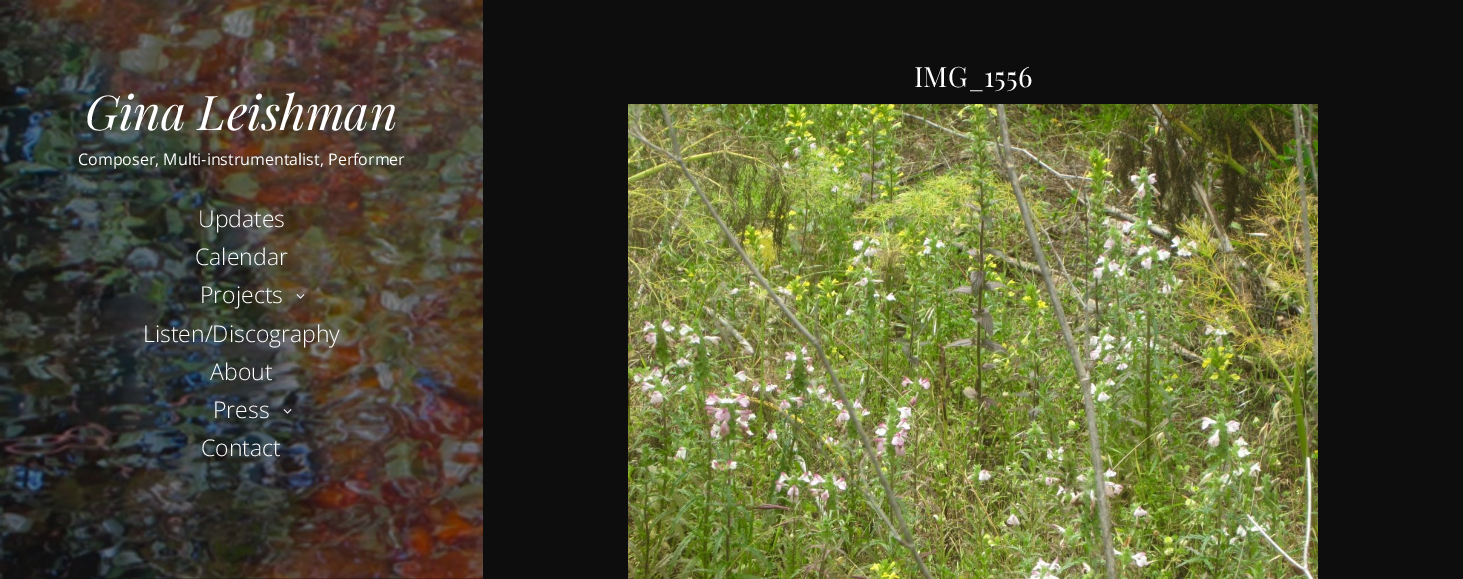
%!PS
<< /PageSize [1463 579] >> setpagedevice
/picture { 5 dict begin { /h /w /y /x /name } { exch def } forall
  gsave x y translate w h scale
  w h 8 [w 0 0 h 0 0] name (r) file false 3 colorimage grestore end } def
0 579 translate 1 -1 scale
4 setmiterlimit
0.051 setgray
0 0 1463 579 rectfill
/PlayfairDisplay-Regular [28 0 0 -28 0 0] selectfont
1 setgray
914 87 moveto (IMG_1556) show
(img1.rgb) 628 104 690 475 picture
(img2.rgb) 0 0 483 579 picture
/PlayfairDisplay-Italic [48 0 0 -48 0 0] selectfont
85 130 moveto (Gina Leishman) show
/OpenSans-Regular [16 0 0 -16 0 0] selectfont
78 165 moveto (Composer, Multi-instrumentalist, Performer) show
/OpenSans-Light [23 0 0 -23 0 0] selectfont
198 227 moveto (Updates) show
195 265 moveto (Calendar) show
200 303 moveto (Projects) show
(img3.rgb) 296 294 9 5 picture
143 342 moveto (Listen/Discography) show
210 380 moveto (About) show
213 418 moveto (Press) show
(img4.rgb) 283 409 9 5 picture
201 456 moveto (Contact) show
showpage
